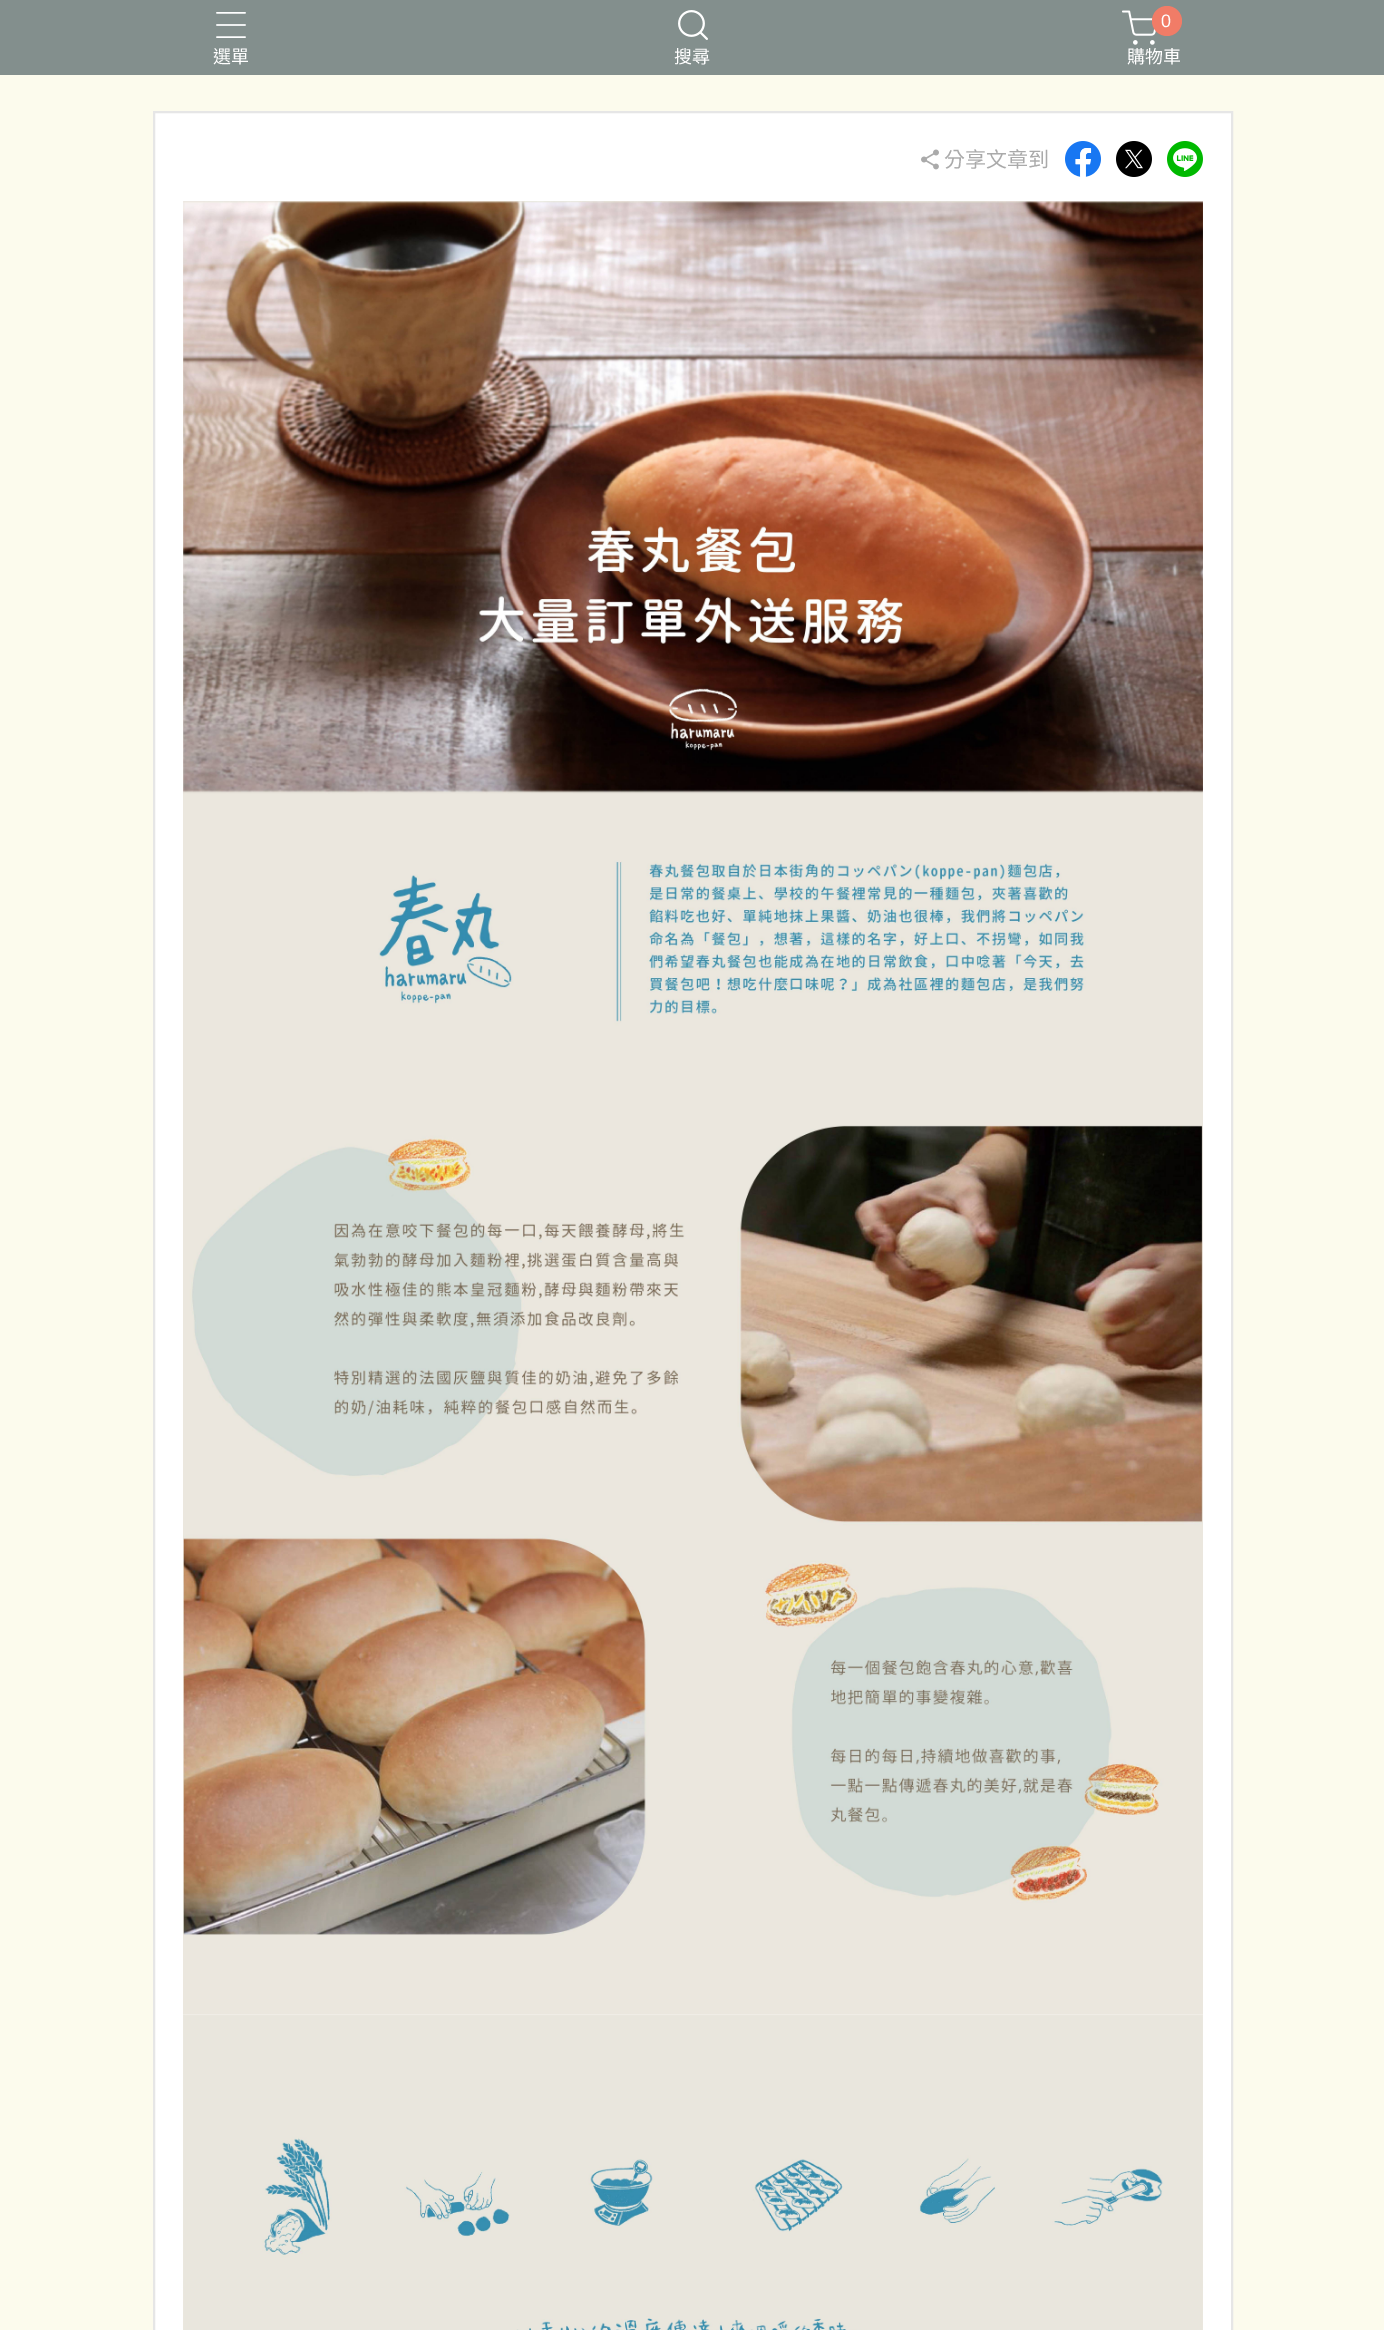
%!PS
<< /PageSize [1384 2330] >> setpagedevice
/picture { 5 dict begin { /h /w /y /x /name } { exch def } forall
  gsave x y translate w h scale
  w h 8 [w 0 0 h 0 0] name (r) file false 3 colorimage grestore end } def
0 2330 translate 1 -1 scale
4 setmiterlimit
0.988 0.984 0.929 setrgbcolor
0 0 1384 2330 rectfill
0.514 0.561 0.553 setrgbcolor
0 0 1384 75 rectfill
(img1.rgb) 216 12 30 26 picture
/NotoSansCJKTC-Regular [18 0 0 -18 0 0] selectfont
1 setgray
213 63 moveto (選單) show
(img2.rgb) 678 10 30 30 picture
674 63 moveto (搜尋) show
(img3.rgb) 1122 10 34 35 picture
0.945 0.486 0.404 setrgbcolor
newpath 1167 21 15 0 360 arc closepath fill
/LiberationSans-Regular [18 0 0 -18 0 0] selectfont
1 setgray
1161 27 moveto 2 0 (0) ashow
/NotoSansCJKTC-Regular [18 0 0 -18 0 0] selectfont
1127 63 moveto (購物車) show
155 113 1076 2217 rectfill
(img4.rgb) 921 149 18 21 picture
(img5.rgb) 1065 141 36 36 picture
(img6.rgb) 1116 141 36 36 picture
(img7.rgb) 1167 141 36 36 picture
(img8.rgb) 183 201 1020 1814 picture
(img9.rgb) 183 2014 1020 316 picture
0.902 setgray
2 setlinewidth
154 112 1078 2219 rectstroke
/NotoSansCJKTC-Regular [21 0 0 -21 0 0] selectfont
0.667 setgray
944 167 moveto (分享文章到) show
showpage
